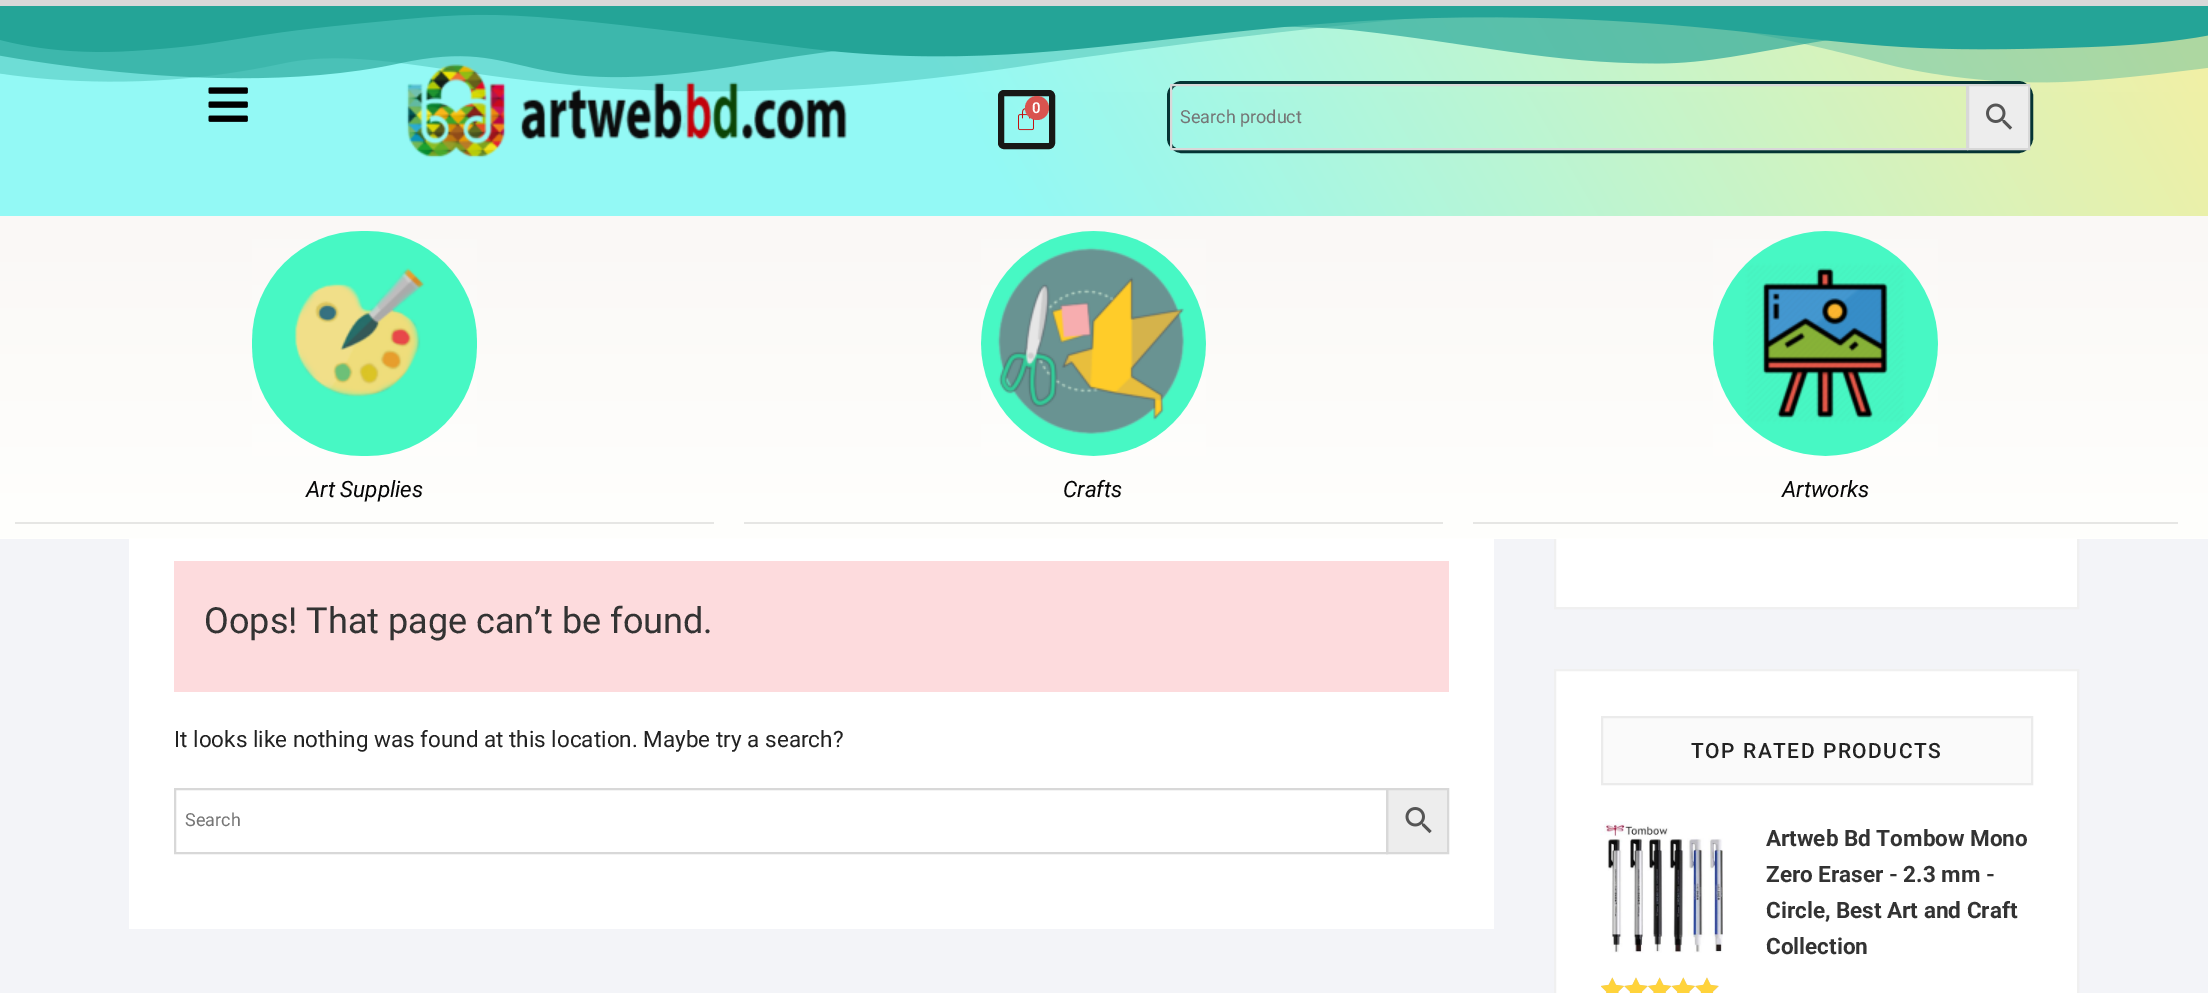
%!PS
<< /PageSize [2208 993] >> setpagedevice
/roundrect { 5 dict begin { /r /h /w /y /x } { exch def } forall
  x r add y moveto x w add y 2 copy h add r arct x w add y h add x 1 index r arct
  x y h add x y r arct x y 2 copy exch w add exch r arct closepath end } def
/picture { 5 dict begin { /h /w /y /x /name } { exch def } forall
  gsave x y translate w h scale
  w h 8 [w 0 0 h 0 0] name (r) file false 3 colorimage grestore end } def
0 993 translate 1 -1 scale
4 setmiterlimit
0.847 setgray
0 0 2208 993 rectfill
0.953 0.957 0.973 setrgbcolor
0 539 2208 454 rectfill
gsave newpath 0 14 moveto 2208 14 lineto 2208 216 lineto 0 216 lineto closepath clip newpath
<< /ShadingType 2 /ColorSpace /DeviceRGB /Coords [1980 -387 228 625] /Extend [true true] /Function << /FunctionType 3 /Domain [0 1] /Functions [<< /FunctionType 2 /Domain [0 1] /C0 [0.941 0.941 0.651] /C1 [0.941 0.941 0.651] /N 1 >> << /FunctionType 2 /Domain [0 1] /C0 [0.941 0.941 0.651] /C1 [0.576 0.976 0.961] /N 1 >> << /FunctionType 2 /Domain [0 1] /C0 [0.576 0.976 0.961] /C1 [0.576 0.976 0.961] /N 1 >>] /Bounds [0.02 0.56] /Encode [0 1 0 1 0 1] >> >> shfill grestore
(img1.rgb) 0 6 2208 86 picture
(img2.rgb) 208 87 40 35 picture
(img3.rgb) 406 64 441 94 picture
0.094 0.094 0.086 setrgbcolor
6 setlinewidth
1001 93 51 53 3 roundrect stroke
(img4.rgb) 1018 108 16 23 picture
0.851 0.325 0.31 setrgbcolor
newpath 1037 108 12 0 360 arc closepath fill
/Roboto-SemiBold [15 0 0 -15 0 0] selectfont
1 setgray
1032 113 moveto (0) show
0.016 0.204 0.204 setrgbcolor
3 setlinewidth
1168.5 82.5 863 69 13.5 roundrect stroke
0.929 setgray
newpath 1968 85 moveto 2029 85 lineto 2029 149 lineto 1968 149 lineto closepath gsave fill grestore
0.847 setgray
2 setlinewidth
stroke
1171 85 796 64 rectstroke
/Roboto-Regular [18 0 0 -18 0 0] selectfont
0.459 setgray
1180 123 moveto (Search product) show
(img5.rgb) 1986 103 27 27 picture
1 setgray
1556 539 521 68 rectfill
0.941 setgray
1555 517 523 91 rectstroke
gsave newpath 0 216 moveto 2208 216 lineto 2208 539 lineto 0 539 lineto closepath clip newpath
<< /ShadingType 2 /ColorSpace /DeviceRGB /Coords [1104 216 1104 539] /Extend [true true] /Function << /FunctionType 2 /Domain [0 1] /C0 [0.98 0.973 0.965] /C1 [1 1 0.992] /N 1 >> >> shfill grestore
(img6.rgb) 252 231 225 225 picture
0.902 0.902 0.894 setrgbcolor
15 522 699 2 rectfill
/Roboto-Italic [22.5 0 0 -22.5 0 0] selectfont
0.024 setgray
306 497 moveto (Art Supplies) show
(img7.rgb) 981 231 225 225 picture
0.902 0.902 0.894 setrgbcolor
744 522 699 2 rectfill
0.024 setgray
1063 497 moveto (Crafts) show
(img8.rgb) 1713 231 225 225 picture
0.902 0.902 0.894 setrgbcolor
1473 522 705 2 rectfill
0.024 setgray
1782 497 moveto (Artworks) show
1 setgray
129 539 1365 390 rectfill
0.992 0.859 0.867 setrgbcolor
174 561 1275 131 rectfill
/Roboto-Regular [36 0 0 -36 0 0] selectfont
0.2 setgray
204 633 moveto (Oops! That page can’t be found.) show
/Roboto-Regular [22.5 0 0 -22.5 0 0] selectfont
0.133 setgray
174 747 moveto (It looks like nothing was found at this location. Maybe try a search?) show
0.929 setgray
newpath 1387 789 moveto 1448 789 lineto 1448 853 lineto 1387 853 lineto closepath gsave fill grestore
0.847 setgray
stroke
175 789 1212 64 rectstroke
/Roboto-Regular [18 0 0 -18 0 0] selectfont
0.459 setgray
185 826 moveto (Search) show
(img9.rgb) 1405 807 27 27 picture
1 setgray
newpath 1555 670 moveto 2078 670 lineto 2078 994 lineto 1555 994 lineto closepath gsave fill grestore
0.941 setgray
stroke
0.98 setgray
newpath 1602 717 moveto 2032 717 lineto 2032 784 lineto 1602 784 lineto closepath gsave fill grestore
0.922 setgray
stroke
/Roboto-Medium [21 0 0 -21 0 0] selectfont
0.133 setgray
1691 758 moveto 1.5 0 (TOP RATED PRODUCTS) ashow
(img10.rgb) 1600 821 123 132 picture
/Roboto-Bold [22.5 0 0 -22.5 0 0] selectfont
0.2 setgray
1766 846 moveto (Artweb Bd Tombow Mono) show
1766 882 moveto (Zero Eraser - 2.3 mm -) show
1766 918 moveto (Circle, Best Art and Craft) show
1766 954 moveto (Collection) show
(img11.rgb) 1601 977 118 16 picture
(img12.rgb) 1601 977 118 16 picture
showpage
